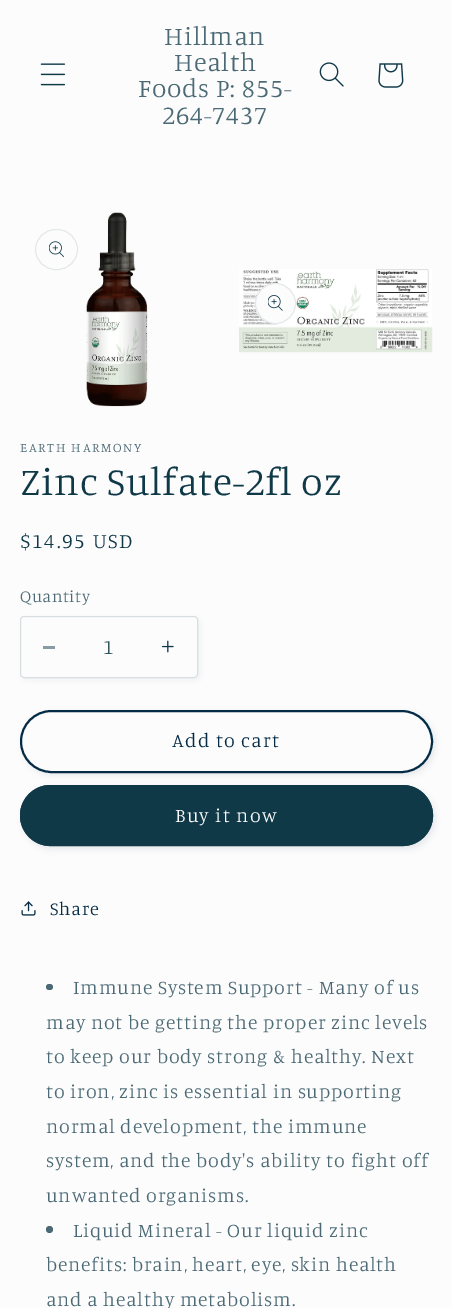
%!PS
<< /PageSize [452 1308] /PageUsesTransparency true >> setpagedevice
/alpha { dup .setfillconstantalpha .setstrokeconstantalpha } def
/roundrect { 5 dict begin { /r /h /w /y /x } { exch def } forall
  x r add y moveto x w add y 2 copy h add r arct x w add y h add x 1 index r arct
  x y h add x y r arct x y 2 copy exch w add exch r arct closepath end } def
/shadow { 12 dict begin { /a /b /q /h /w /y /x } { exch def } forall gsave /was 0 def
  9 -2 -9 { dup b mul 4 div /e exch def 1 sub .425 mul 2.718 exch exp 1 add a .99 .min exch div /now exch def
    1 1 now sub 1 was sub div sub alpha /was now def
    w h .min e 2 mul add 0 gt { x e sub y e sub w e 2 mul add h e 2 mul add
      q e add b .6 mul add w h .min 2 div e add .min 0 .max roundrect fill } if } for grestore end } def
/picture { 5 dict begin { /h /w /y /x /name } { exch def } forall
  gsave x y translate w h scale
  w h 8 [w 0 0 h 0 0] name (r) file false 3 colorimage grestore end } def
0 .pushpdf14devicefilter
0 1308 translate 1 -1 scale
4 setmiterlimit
0.988 setgray
0 0 452 1308 rectfill
(img1.rgb) 40 63 26 23 picture
/Manuale-Light [26.25 0 0 -26.25 0 0] selectfont
0.294 0.416 0.459 setrgbcolor
164 45 moveto 0.8 0 (Hillman) ashow
174 71 moveto 0.8 0 (Health) ashow
138 97 moveto 0.8 0 (Foods P: 855-) ashow
162 124 moveto 0.8 0 (264-7437) ashow
(img2.rgb) 319 62 25 25 picture
(img3.rgb) 378 63 26 25 picture
0.894 0.91 0.918 setrgbcolor
35.5 229.5 42 40 20 roundrect stroke
(img4.rgb) 49 241 15 16 picture
(img5.rgb) 86 212 62 195 picture
(img6.rgb) 239 269 194 84 picture
0.988 setgray
newpath 275.5 303.5 20.5 0 360 arc closepath fill
0.1 alpha
0.063 0.224 0.282 setrgbcolor
newpath 275.5 303.5 20 0 360 arc closepath stroke
1 alpha
(img7.rgb) 268 295 15 16 picture
/Manuale-Light [13.1 0 0 -13.1 0 0] selectfont
0.294 0.416 0.459 setrgbcolor
20 452 moveto 1.75 0 (EARTH HARMONY) ashow
/Manuale-Light [39.5 0 0 -39.5 0 0] selectfont
0.063 0.224 0.282 setrgbcolor
20 495 moveto 0.8 0 (Zinc Sulfate-2fl oz) ashow
/Manuale-Light [21 0 0 -21 0 0] selectfont
20 548 moveto 1.75 0 ($14.95 USD) ashow
/Manuale-Light [17 0 0 -17 0 0] selectfont
0.294 0.416 0.459 setrgbcolor
20 602 moveto 0.5 0 (Quantity) ashow
0.063 0.224 0.282 setrgbcolor
23 619 177 61 4 3 0.05 shadow
0.988 setgray
20 616 178 62 4 roundrect fill
0.525 0.608 0.635 setrgbcolor
43 646 12 3 rectfill
(img8.rgb) 161 640 13 13 picture
0.15 alpha
0.063 0.224 0.282 setrgbcolor
20.5 616.5 177 61 3.5 roundrect stroke
/Manuale-Light [21 0 0 -21 0 0] selectfont
1 alpha
0.2 0.337 0.388 setrgbcolor
103 654 moveto (1) show
0.063 0.224 0.282 setrgbcolor
23 713 412 62 31 3 0.1 shadow
0.988 setgray
20 710 413 63 31.5 roundrect fill
20.5 710.5 412 62 31 roundrect stroke
0.02 0.173 0.275 setrgbcolor
2 setlinewidth
21 711 411 61 30.5 roundrect stroke
/Manuale-Light [19.7 0 0 -19.7 0 0] selectfont
172 747 moveto 1.25 0 (Add to cart) ashow
0.063 0.224 0.282 setrgbcolor
23 788 412 61 30.5 3 0.1 shadow
20 785 413 61 30.5 roundrect fill
1 setlinewidth
20.5 785.5 412 60 30 roundrect stroke
0.988 setgray
175 822 moveto 1.25 0 (Buy it now) ashow
(img9.rgb) 21 901 15 15 picture
/Manuale-Light [18.5 0 0 -18.5 0 0] selectfont
0.02 0.173 0.275 setrgbcolor
50 915 moveto 0.8 0 (Share) ashow
0.294 0.416 0.459 setrgbcolor
46 984 7 6 3 roundrect fill
/Manuale-Light [19.7 0 0 -19.7 0 0] selectfont
73 994 moveto 0.8 0 (Immune System Support - Many of us) ashow
46 1029 moveto 0.8 0 (may not be getting the proper zinc levels) ashow
46 1063 moveto 0.8 0 (to keep our body strong & healthy. Next) ashow
46 1098 moveto 0.8 0 (to iron, zinc is essential in supporting) ashow
46 1133 moveto 0.8 0 (normal development, the immune) ashow
46 1167 moveto 0.8 0 (system, and the body's ability to fight off) ashow
46 1202 moveto 0.8 0 (unwanted organisms.) ashow
newpath 49.5 1229.5 3.5 0 360 arc closepath fill
73 1237 moveto 0.8 0 (Liquid Mineral - Our liquid zinc) ashow
46 1271 moveto 0.8 0 (benefits: brain, heart, eye, skin health) ashow
46 1306 moveto 0.8 0 (and a healthy metabolism.) ashow
.poppdf14devicefilter showpage
